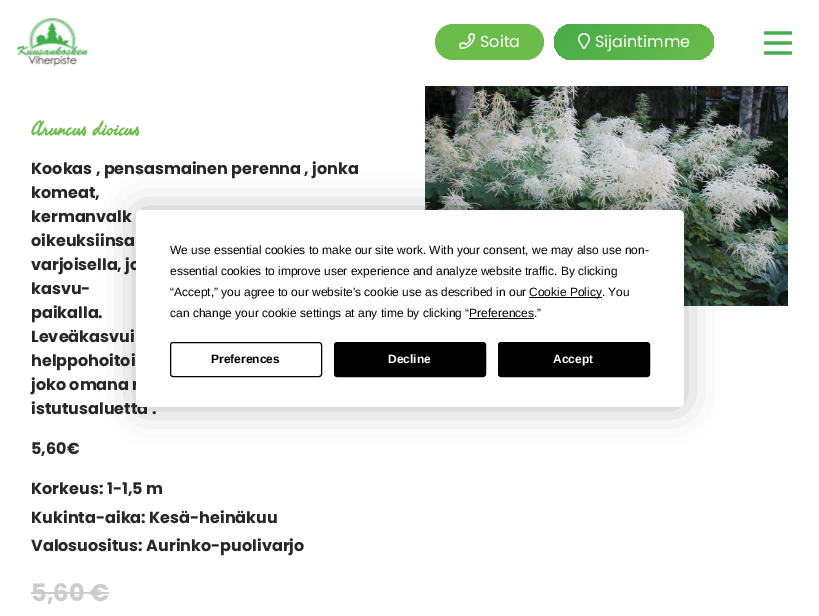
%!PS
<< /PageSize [819 616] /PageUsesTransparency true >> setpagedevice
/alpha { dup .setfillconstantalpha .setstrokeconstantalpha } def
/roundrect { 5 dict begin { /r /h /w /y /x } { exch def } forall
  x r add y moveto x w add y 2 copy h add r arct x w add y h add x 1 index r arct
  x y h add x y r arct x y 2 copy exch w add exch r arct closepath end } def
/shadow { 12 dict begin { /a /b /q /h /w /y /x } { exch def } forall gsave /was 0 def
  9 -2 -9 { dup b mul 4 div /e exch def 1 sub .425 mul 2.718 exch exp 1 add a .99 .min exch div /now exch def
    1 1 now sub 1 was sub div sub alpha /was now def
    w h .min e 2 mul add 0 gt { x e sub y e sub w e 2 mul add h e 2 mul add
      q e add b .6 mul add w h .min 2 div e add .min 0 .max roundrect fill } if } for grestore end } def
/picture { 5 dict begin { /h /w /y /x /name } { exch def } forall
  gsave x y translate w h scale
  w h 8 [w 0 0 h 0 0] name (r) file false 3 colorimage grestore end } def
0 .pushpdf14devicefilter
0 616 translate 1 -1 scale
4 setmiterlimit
1 setgray
0 0 819 616 rectfill
(img1.rgb) 17 17 72 50 picture
(img2.rgb) 764 31 28 24 picture
0.42 0.737 0.29 setrgbcolor
435 24 109 36 18 roundrect fill
(img3.rgb) 459 33 16 16 picture
/Poppins-Regular [16 0 0 -16 0 0] selectfont
1 setgray
480 47 moveto (Soita) show
gsave 554 24 160 36 18 roundrect clip newpath
<< /ShadingType 2 /ColorSpace /DeviceRGB /Coords [691 88 577 -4.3] /Extend [true true] /Function << /FunctionType 2 /Domain [0 1] /C0 [0.42 0.737 0.29] /C1 [0.278 0.675 0.294] /N 1 >> >> shfill grestore
(img4.rgb) 578 33 12 16 picture
595 47 moveto (Sijaintimme) show
/Fasthand-Bold [19.25 0 0 -19.25 0 0] selectfont
0.42 0.737 0.29 setrgbcolor
31 135 moveto (Aruncus dioicus) show
/Poppins-Bold [16 0 0 -16 0 0] selectfont
0.153 setgray
31 174 moveto (Kookas , pensasmainen perenna , jonka) show
31 198 moveto (komeat,) show
31 222 moveto (kermanvalk) show
31 246 moveto (oikeuksiinsa) show
31 270 moveto (varjoisella, jo) show
31 294 moveto (kasvu-) show
31 318 moveto (paikalla.) show
31 342 moveto (Leveäkasvui) show
31 366 moveto (helppohoitoi) show
31 390 moveto (joko omana r) show
31 414 moveto (istutusaluetta .) show
31 454 moveto (5,60€) show
31 494 moveto (Korkeus: 1-1,5 m) show
31 523 moveto (Kukinta-aika: Kesä-heinäkuu) show
31 551 moveto (Valosuositus: Aurinko-puolivarjo) show
/Poppins-Bold [24 0 0 -24 0 0] selectfont
0.8 setgray
31 601 moveto (5,60 €) show
31 592 78 2 rectfill
(img5.rgb) 425 86 363 220 picture
0 setgray
136 210 548 197 5 17.5 0.25 shadow
1 setgray
136 210 548 197 5 roundrect fill
/LiberationSans-Regular [12 0 0 -12 0 0] selectfont
0 setgray
170 254 moveto (We use essential cookies to make our site work. With your consent, we may also use non-) show
170 275 moveto (essential cookies to improve user experience and analyze website traffic. By clicking) show
170 296 moveto (“Accept,” you agree to our website's cookie use as described in our) show
529 297 73 1 rectfill
529 296 moveto (Cookie Policy. You) show
170 317 moveto (can change your cookie settings at any time by clicking “Preferences.”) show
469 318 65 1 rectfill
170.5 342.5 151 34 2.5 roundrect stroke
/LiberationSans-Bold [12 0 0 -12 0 0] selectfont
211 363 moveto (Preferences) show
334.5 342.5 151 34 2.5 roundrect gsave fill grestore
stroke
1 setgray
388 363 moveto (Decline) show
0 setgray
498.5 342.5 151 34 2.5 roundrect gsave fill grestore
stroke
1 setgray
553 363 moveto (Accept) show
.poppdf14devicefilter showpage
